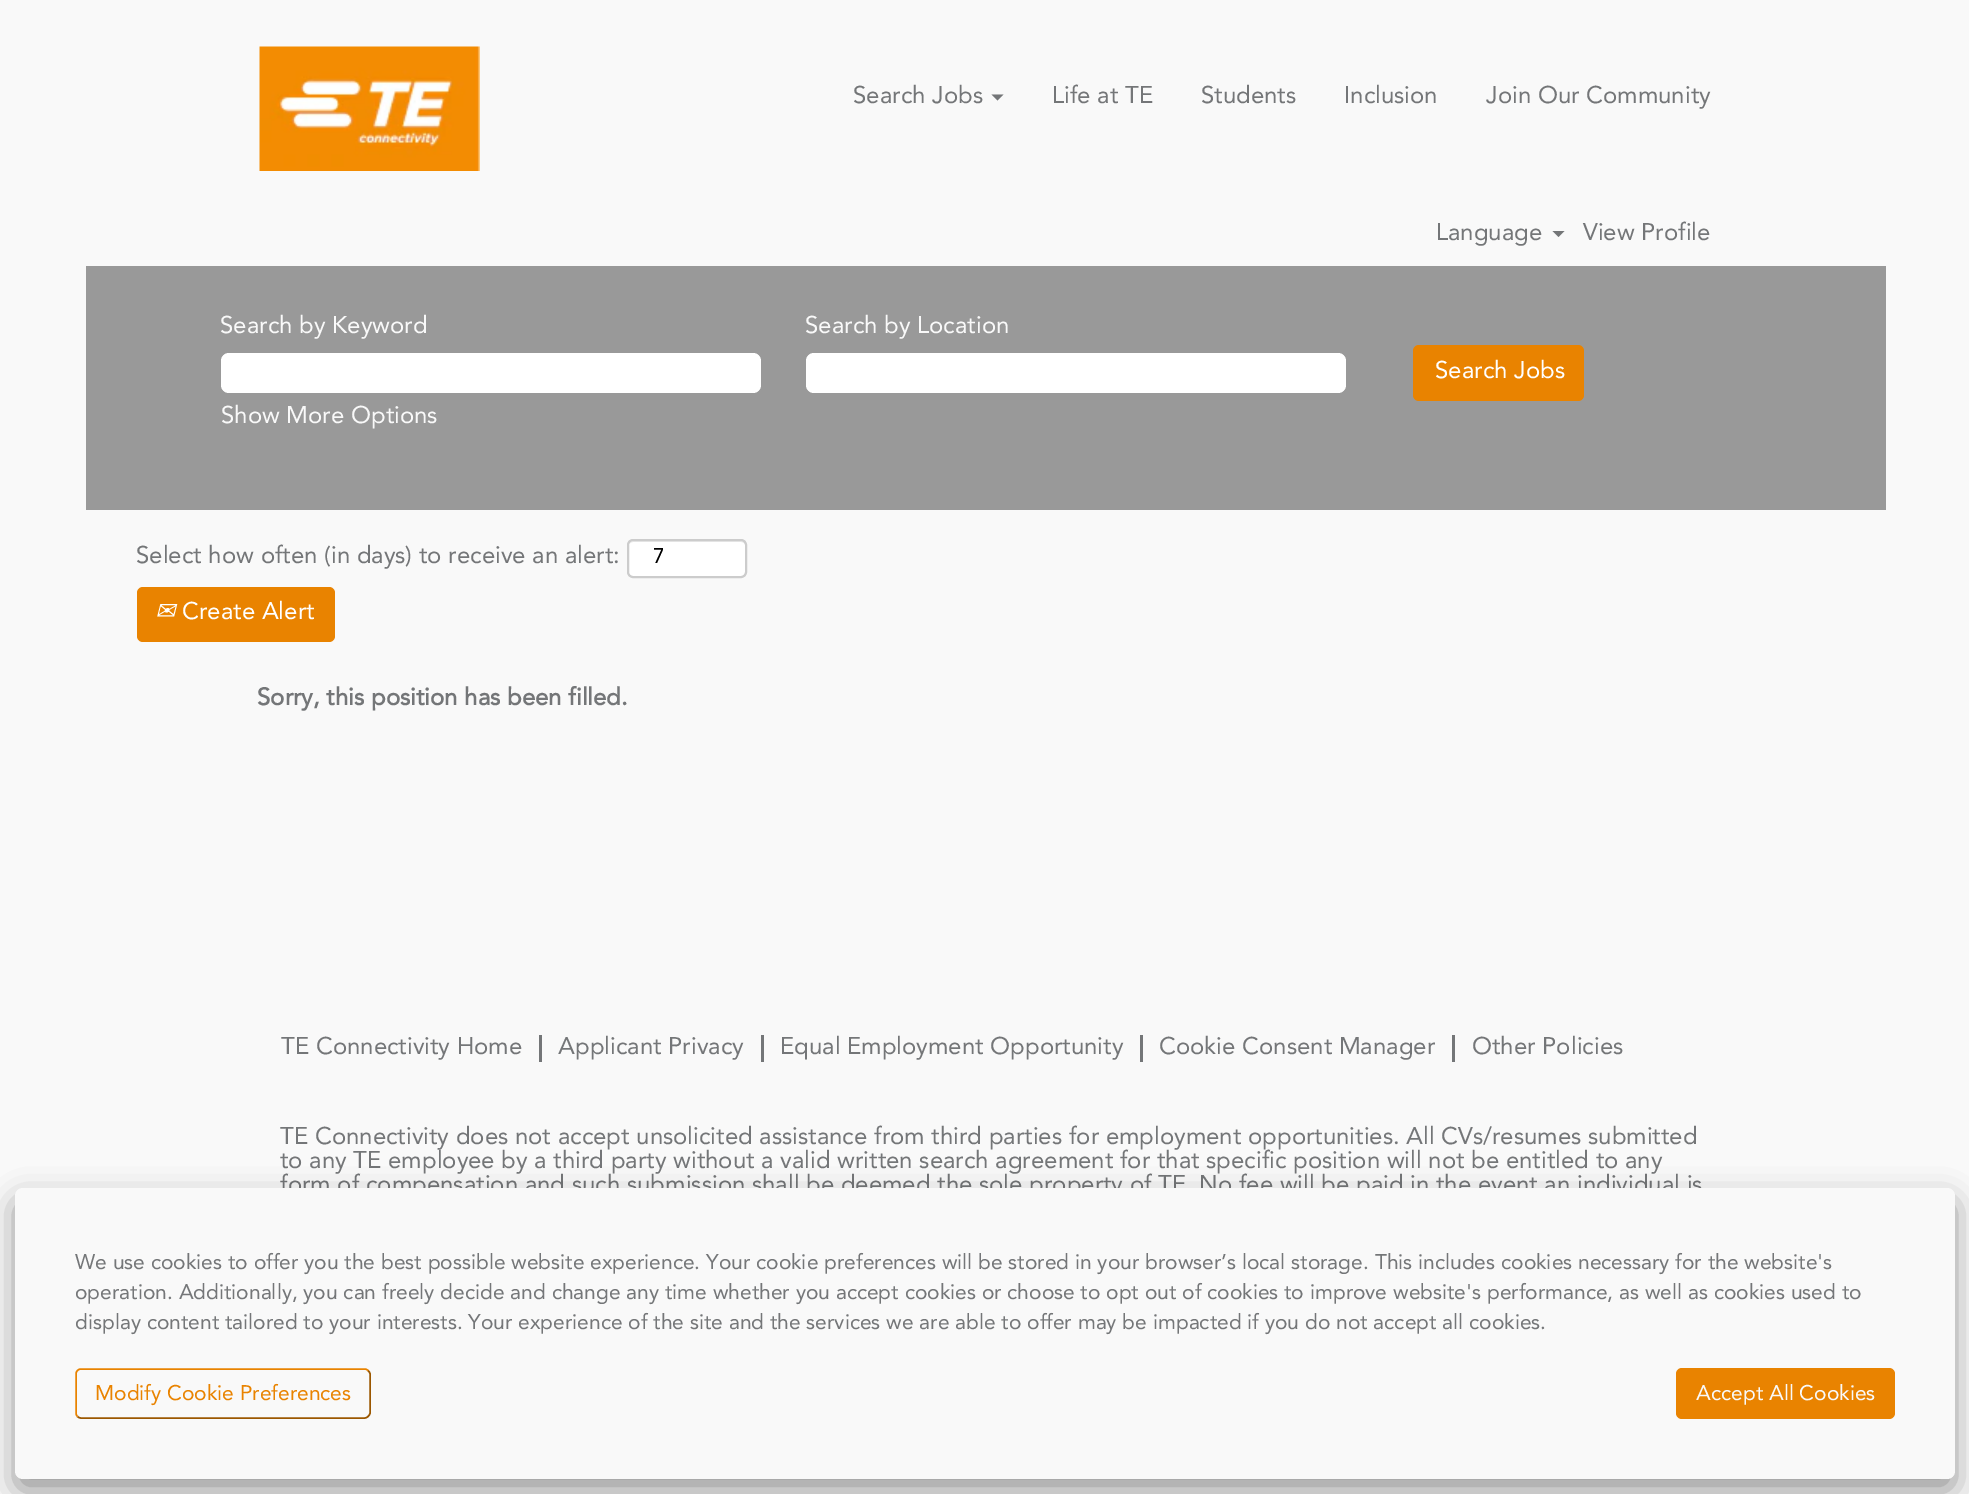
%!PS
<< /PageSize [1969 1494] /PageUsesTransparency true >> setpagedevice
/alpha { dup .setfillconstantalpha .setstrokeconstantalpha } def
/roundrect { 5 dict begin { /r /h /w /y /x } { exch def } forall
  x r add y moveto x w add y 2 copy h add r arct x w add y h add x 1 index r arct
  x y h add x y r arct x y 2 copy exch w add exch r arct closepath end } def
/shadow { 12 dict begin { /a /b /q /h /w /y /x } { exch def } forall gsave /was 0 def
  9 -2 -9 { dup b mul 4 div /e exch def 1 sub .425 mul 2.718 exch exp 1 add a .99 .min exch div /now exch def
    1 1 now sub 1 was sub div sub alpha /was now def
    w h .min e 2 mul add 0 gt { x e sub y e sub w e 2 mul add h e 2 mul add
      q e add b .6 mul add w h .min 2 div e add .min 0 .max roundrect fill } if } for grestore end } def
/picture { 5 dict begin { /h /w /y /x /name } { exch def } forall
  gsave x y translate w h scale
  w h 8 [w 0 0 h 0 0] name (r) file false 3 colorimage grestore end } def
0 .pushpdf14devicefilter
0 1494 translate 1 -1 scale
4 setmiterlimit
0.976 setgray
0 0 1969 1494 rectfill
(img1.rgb) 259 46 221 125 picture
/Avenir-Regular [24 0 0 -24 0 0] selectfont
0.455 0.463 0.471 setrgbcolor
853 103 moveto (Search Jobs) show
newpath 991.5 94.5 moveto 1003.5 94.5 lineto 997.5 100.5 lineto closepath fill
1052 103 moveto (Life at TE) show
1201 103 moveto (Students) show
1344 103 moveto (Inclusion) show
1486 103 moveto (Join Our Community) show
1436 240 moveto (Language) show
newpath 1552.5 231 moveto 1564.5 231 lineto 1558.5 237 lineto closepath fill
1583 240 moveto (View Profile) show
0.6 setgray
86 266 1800 244 rectfill
0.976 setgray
220 333 moveto (Search by Keyword) show
1 setgray
221 353 540 40 8 roundrect fill
0.976 setgray
805 333 moveto (Search by Location) show
1 setgray
806 353 540 40 8 roundrect fill
0.976 setgray
221 423 moveto (Show More Options) show
0.914 0.514 0 setrgbcolor
1413 345 171 56 6 roundrect fill
1 setgray
1435 378 moveto (Search Jobs) show
0.455 0.463 0.471 setrgbcolor
136 563 moveto (Select how often \(in days\) to receive an alert:) show
1 setgray
627 539 120 39 6 roundrect fill
0.925 setgray
newpath 633 542 moveto 741 542 lineto 743 542 746 544 746 546 curveto 746 545 lineto 746 542 744 540 741 540 curveto 634 540 lineto 632 540 630 542 629 544 curveto 630 543 632 542 633 542 curveto closepath fill
0.8 setgray
2 setlinewidth
628 540 118 37 5 roundrect stroke
/Avenir-Regular [21 0 0 -21 0 0] selectfont
0 setgray
653 563 moveto (7) show
0.914 0.514 0 setrgbcolor
137 587 198 55 6 roundrect fill
/DejaVuSans-Italic [24 0 0 -24 0 0] selectfont
1 setgray
155 619 moveto (✉) show
/Avenir-Regular [24 0 0 -24 0 0] selectfont
182 619 moveto (Create Alert) show
/Avenir-Bold [24 0 0 -24 0 0] selectfont
0.455 0.463 0.471 setrgbcolor
257 705 moveto (Sorry, this position has been filled.) show
539 1035 3 27 rectfill
/Avenir-Regular [24 0 0 -24 0 0] selectfont
281 1054 moveto (TE Connectivity Home) show
761 1035 3 27 rectfill
558 1054 moveto (Applicant Privacy) show
1140 1035 3 27 rectfill
780 1054 moveto (Equal Employment Opportunity) show
1452 1035 3 27 rectfill
1159 1054 moveto (Cookie Consent Manager) show
1472 1054 moveto (Other Policies) show
280 1144 moveto (TE Connectivity does not accept unsolicited assistance from third parties for employment opportunities. All CVs/resumes submitted) show
280 1168 moveto (to any TE employee by a third party without a valid written search agreement for that specific position will not be entitled to any) show
280 1192 moveto (form of compensation and such submission shall be deemed the sole property of TE) show
1199 1192 moveto (No fee will be paid in the event an individual is) show
0 setgray
15 1200 1940 291 8 15 0.39 shadow
0.976 setgray
15 1188 1940 291 8 roundrect fill
/Avenir-Regular [21 0 0 -21 0 0] selectfont
0.455 0.463 0.471 setrgbcolor
75 1269 moveto (We use cookies to offer you the best possible website experience. Your cookie preferences will be stored in your browser’s local storage. This includes cookies necessary for the website's) show
75 1299 moveto (operation. Additionally, you can freely decide and change any time whether you accept cookies or choose to opt out of cookies to improve website's performance, as well as cookies used to) show
75 1329 moveto (display content tailored to your interests. Your experience of the site and the services we are able to offer may be impacted if you do not accept all cookies.) show
0.608 0.341 0 setrgbcolor
1.5 setlinewidth
newpath 368 1370.5 moveto 369 1371.5 370 1372.5 370 1374 curveto 370 1413 lineto 370 1414.5 369 1415.5 368 1416.5 curveto 367 1417.5 366 1418 364.5 1418 curveto 81 1418 lineto 79.5 1418 78.5 1417.5 77.5 1416.5 curveto stroke
0.914 0.514 0 setrgbcolor
newpath 77.5 1416.5 moveto 76.5 1415.5 76 1414.5 76 1413 curveto 76 1374 lineto 76 1372.5 76.5 1371.5 77.5 1370.5 curveto 78.5 1369.5 79.5 1369 81 1369 curveto 364.5 1369 lineto 366 1369 367 1369.5 368 1370.5 curveto stroke
95 1400 moveto (Modify Cookie Preferences) show
1676 1368 219 51 6 roundrect fill
0.976 setgray
1696 1400 moveto (Accept All Cookies) show
.poppdf14devicefilter showpage
